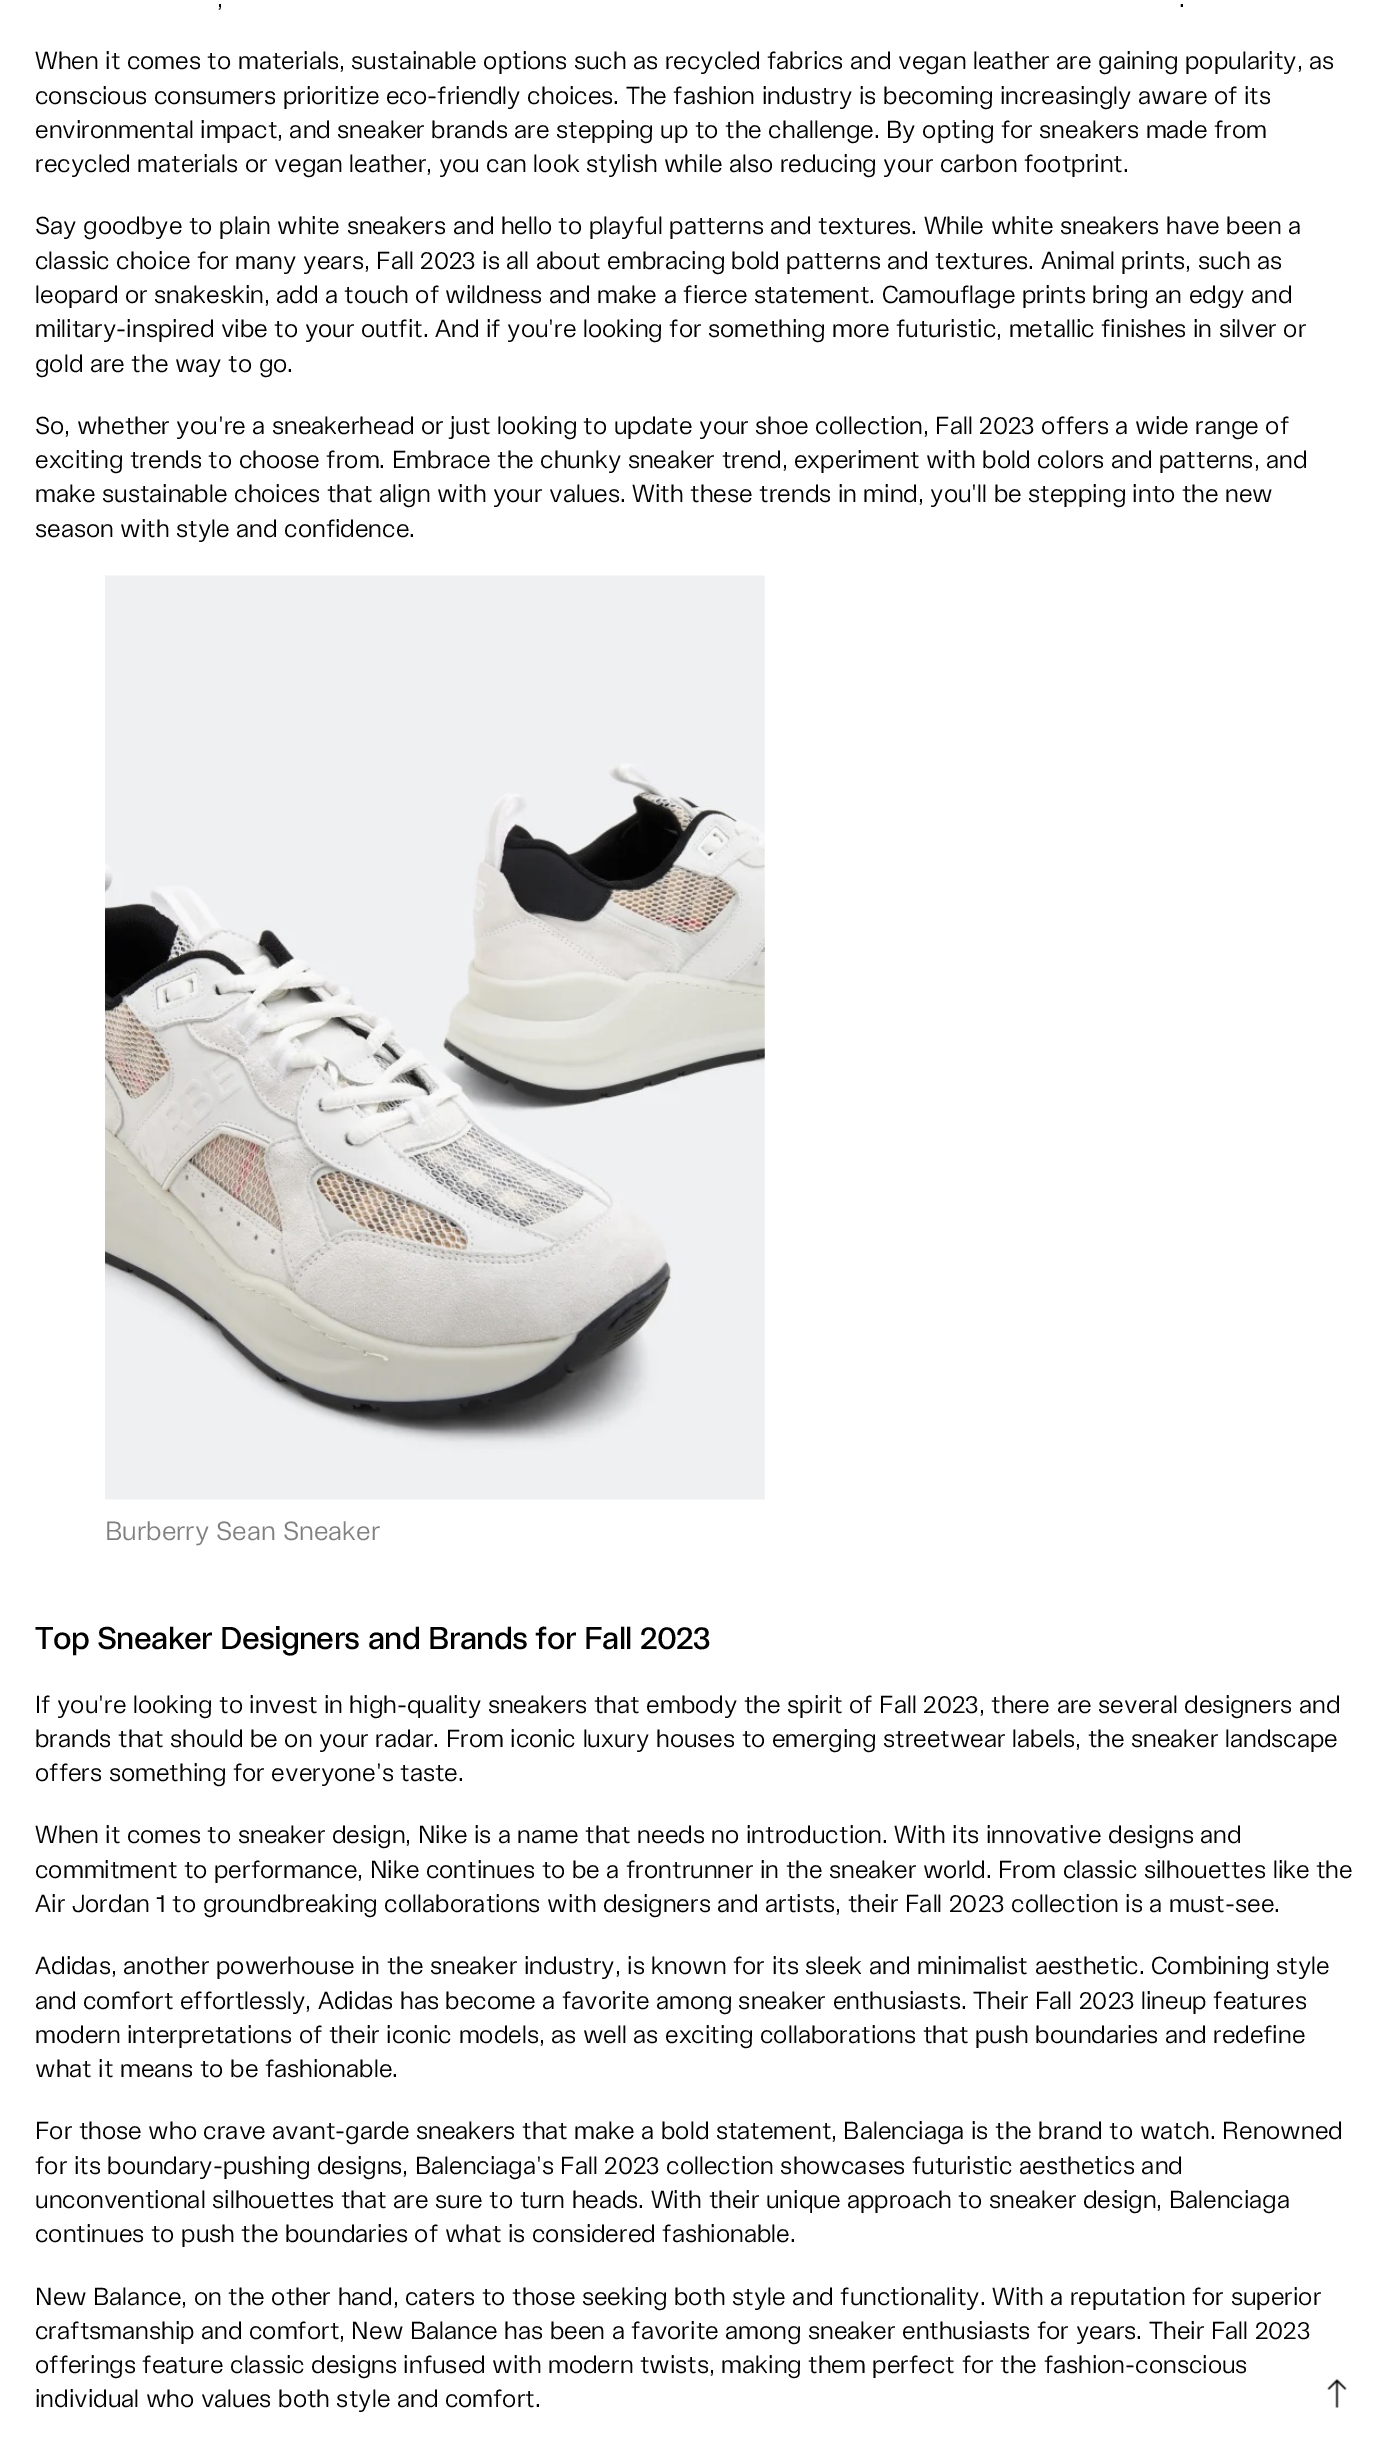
%!PS
<< /PageSize [1389 2446] >> setpagedevice
/picture { 5 dict begin { /h /w /y /x /name } { exch def } forall
  gsave x y translate w h scale
  w h 8 [w 0 0 h 0 0] name (r) file false 3 colorimage grestore end } def
0 2446 translate 1 -1 scale
4 setmiterlimit
1 setgray
0 0 1389 2446 rectfill
/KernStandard-Regular [24.5 0 0 -24.5 0 0] selectfont
0 setgray
217 7 moveto (,) show
1179 7 moveto (.) show
35 69 moveto (When it comes to materials, sustainable options such as recycled fabrics and vegan leather are gaining popularity, as) show
35 104 moveto (conscious consumers prioritize eco-friendly choices. The fashion industry is becoming increasingly aware of its) show
35 138 moveto (environmental impact, and sneaker brands are stepping up to the challenge. By opting for sneakers made from) show
35 172 moveto (recycled materials or vegan leather, you can look stylish while also reducing your carbon footprint.) show
35 234 moveto (Say goodbye to plain white sneakers and hello to playful patterns and textures. While white sneakers have been a) show
35 269 moveto (classic choice for many years, Fall 2023 is all about embracing bold patterns and textures. Animal prints, such as) show
35 303 moveto (leopard or snakeskin, add a touch of wildness and make a fierce statement. Camouflage prints bring an edgy and) show
35 337 moveto (military-inspired vibe to your outfit. And if you're looking for something more futuristic, metallic finishes in silver or) show
35 372 moveto (gold are the way to go.) show
35 434 moveto (So, whether you're a sneakerhead or just looking to update your shoe collection, Fall 2023 offers a wide range of) show
35 468 moveto (exciting trends to choose from. Embrace the chunky sneaker trend, experiment with bold colors and patterns, and) show
35 502 moveto (make sustainable choices that align with your values. With these trends in mind, you'll be stepping into the new) show
35 537 moveto (season with style and confidence.) show
(img1.rgb) 105 575 660 925 picture
/KernStandard-Regular [26.25 0 0 -26.25 0 0] selectfont
0.502 setgray
105 1540 moveto (Burberry Sean Sneaker) show
/KernStandard-Medium [31.5 0 0 -31.5 0 0] selectfont
0 setgray
35 1649 moveto -0.65 0 (Top Sneaker Designers and Brands for Fall 2023) ashow
/KernStandard-Regular [24.5 0 0 -24.5 0 0] selectfont
35 1713 moveto (If you're looking to invest in high-quality sneakers that embody the spirit of Fall 2023, there are several designers and) show
35 1747 moveto (brands that should be on your radar. From iconic luxury houses to emerging streetwear labels, the sneaker landscape) show
35 1781 moveto (offers something for everyone's taste.) show
35 1843 moveto (When it comes to sneaker design, Nike is a name that needs no introduction. With its innovative designs and) show
35 1878 moveto (commitment to performance, Nike continues to be a frontrunner in the sneaker world. From classic silhouettes like the) show
35 1912 moveto (Air Jordan 1 to groundbreaking collaborations with designers and artists, their Fall 2023 collection is a must-see.) show
35 1974 moveto (Adidas, another powerhouse in the sneaker industry, is known for its sleek and minimalist aesthetic. Combining style) show
35 2009 moveto (and comfort effortlessly, Adidas has become a favorite among sneaker enthusiasts. Their Fall 2023 lineup features) show
35 2043 moveto (modern interpretations of their iconic models, as well as exciting collaborations that push boundaries and redefine) show
35 2077 moveto (what it means to be fashionable.) show
35 2139 moveto (For those who crave avant-garde sneakers that make a bold statement, Balenciaga is the brand to watch. Renowned) show
35 2174 moveto (for its boundary-pushing designs, Balenciaga's Fall 2023 collection showcases futuristic aesthetics and) show
35 2208 moveto (unconventional silhouettes that are sure to turn heads. With their unique approach to sneaker design, Balenciaga) show
35 2242 moveto (continues to push the boundaries of what is considered fashionable.) show
35 2305 moveto (New Balance, on the other hand, caters to those seeking both style and functionality. With a reputation for superior) show
35 2339 moveto (craftsmanship and comfort, New Balance has been a favorite among sneaker enthusiasts for years. Their Fall 2023) show
35 2373 moveto (offerings feature classic designs infused with modern twists, making them perfect for the fashion-conscious) show
35 2407 moveto (individual who values both style and comfort.) show
(img2.rgb) 1327 2378 20 30 picture
showpage
